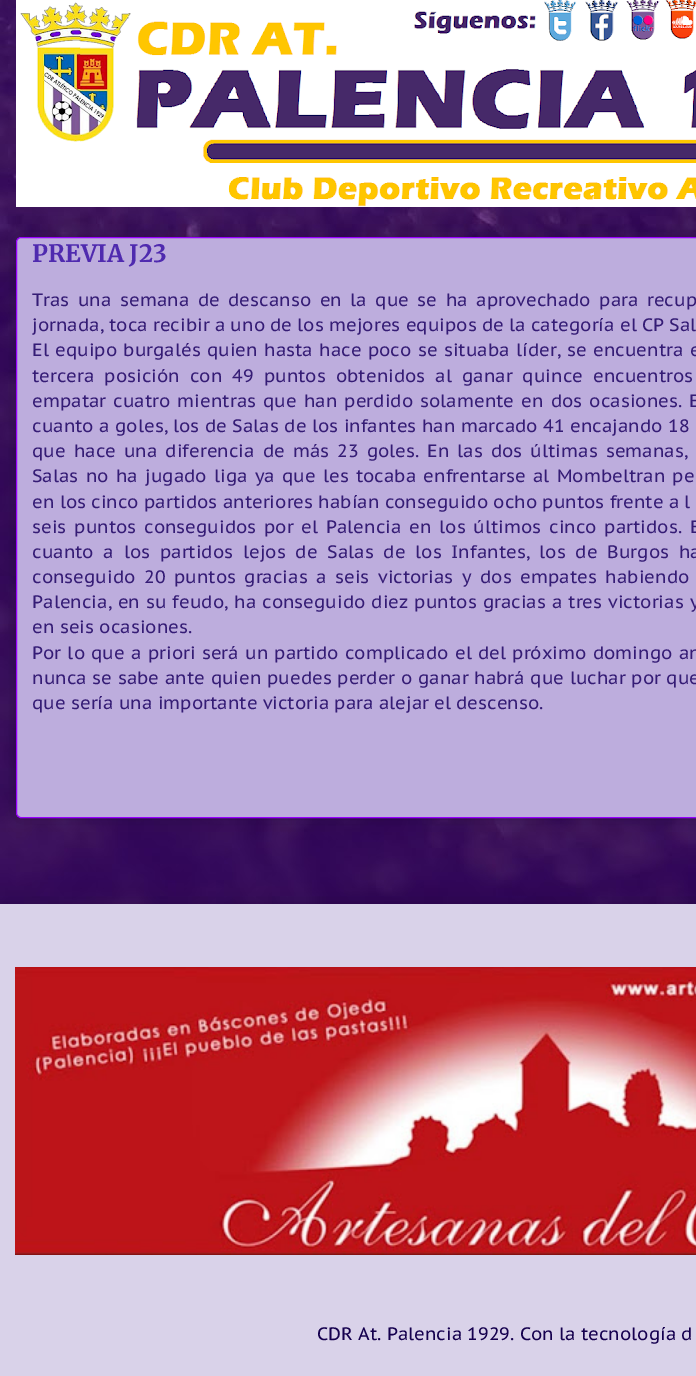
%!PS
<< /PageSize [696 1376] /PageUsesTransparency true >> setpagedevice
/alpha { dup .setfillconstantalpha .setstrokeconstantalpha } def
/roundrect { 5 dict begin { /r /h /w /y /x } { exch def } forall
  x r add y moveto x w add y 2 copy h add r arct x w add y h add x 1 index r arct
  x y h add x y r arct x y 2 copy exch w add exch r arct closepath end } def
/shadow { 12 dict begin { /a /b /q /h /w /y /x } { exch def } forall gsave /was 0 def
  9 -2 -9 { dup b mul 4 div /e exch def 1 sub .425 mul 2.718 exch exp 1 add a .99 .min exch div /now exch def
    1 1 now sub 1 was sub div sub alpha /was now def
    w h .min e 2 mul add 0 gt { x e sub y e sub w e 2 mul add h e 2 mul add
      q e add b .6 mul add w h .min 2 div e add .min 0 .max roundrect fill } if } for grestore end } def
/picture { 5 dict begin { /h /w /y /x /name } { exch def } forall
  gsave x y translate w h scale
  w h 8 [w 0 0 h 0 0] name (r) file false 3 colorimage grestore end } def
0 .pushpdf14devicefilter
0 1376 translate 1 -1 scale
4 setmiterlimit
1 setgray
0 0 696 1376 rectfill
(img1.rgb) 0 0 696 904 picture
(img2.rgb) 16 0 680 207 picture
0 setgray
16 237 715 581 5 10 0.2 shadow
0.741 0.678 0.867 setrgbcolor
16.5 237.5 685 580 4.5 roundrect gsave fill grestore
0.6 0 1 setrgbcolor
stroke
/Merriweather-Light [24 0 0 -24 0 0] selectfont
0.31 0.165 0.686 setrgbcolor
32 262 moveto (PREVIA J23) show
/PTSansCaption-Regular [18 0 0 -18 0 0] selectfont
0.208 0.11 0.459 setrgbcolor
32 306 moveto 3.25 0 32 (Tras una semana de descanso en la que se ha aprovechado para recup) widthshow
32 331 moveto (jornada, toca recibir a uno de los mejores equipos de la categoría el CP Sal) show
32 356 moveto 1.1 0 32 (El equipo burgalés quien hasta hace poco se situaba líder, se encuentra e) widthshow
32 382 moveto 4.75 0 32 (tercera posición con 49 puntos obtenidos al ganar quince encuentros) widthshow
32 407 moveto 1.8 0 32 (empatar cuatro mientras que han perdido solamente en dos ocasiones. E) widthshow
32 432 moveto 0.2 0 32 (cuanto a goles, los de Salas de los infantes han marcado 41 encajando 18) widthshow
32 457 moveto 2.75 0 32 (que hace una diferencia de más 23 goles. En las dos últimas semanas,) widthshow
32 482 moveto 2 0 32 (Salas no ha jugado liga ya que les tocaba enfrentarse al Mombeltran pe) widthshow
32 508 moveto (en los cinco partidos anteriores habían conseguido ocho puntos frente a l) show
32 533 moveto 2.5 0 32 (seis puntos conseguidos por el Palencia en los últimos cinco partidos. E) widthshow
32 558 moveto 4.5 0 32 (cuanto a los partidos lejos de Salas de los Infantes, los de Burgos ha) widthshow
32 583 moveto 3.25 0 32 (conseguido 20 puntos gracias a seis victorias y dos empates habiendo) widthshow
32 608 moveto 0.75 0 32 (Palencia, en su feudo, ha conseguido diez puntos gracias a tres victorias y) widthshow
32 633 moveto (en seis ocasiones.) show
32 659 moveto 1 0 32 (Por lo que a priori será un partido complicado el del próximo domingo an) widthshow
32 684 moveto 0.4 0 32 (nunca se sabe ante quien puedes perder o ganar habrá que luchar por que) widthshow
32 709 moveto (que sería una importante victoria para alejar el descenso.) show
0 setgray
-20 904 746 472 0 10 0.2 shadow
0.851 0.824 0.914 setrgbcolor
0 904 696 472 rectfill
(img3.rgb) 15 967 681 288 picture
0.082 0 0.306 setrgbcolor
317 1340 moveto (CDR At. Palencia 1929. Con la tecnología d) show
.poppdf14devicefilter showpage
